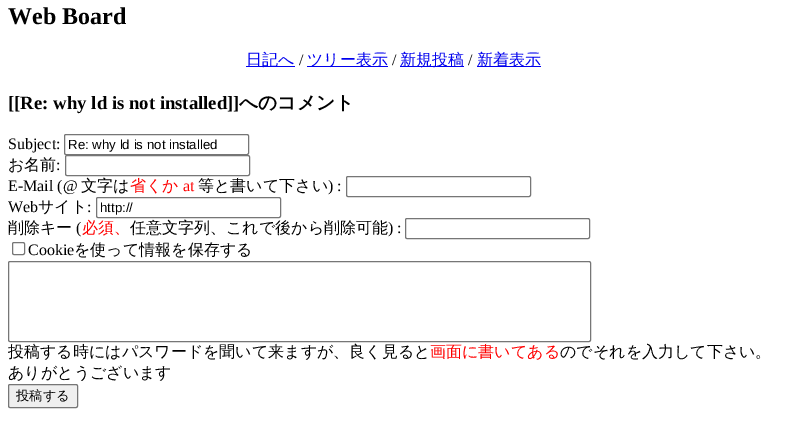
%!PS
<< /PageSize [787 429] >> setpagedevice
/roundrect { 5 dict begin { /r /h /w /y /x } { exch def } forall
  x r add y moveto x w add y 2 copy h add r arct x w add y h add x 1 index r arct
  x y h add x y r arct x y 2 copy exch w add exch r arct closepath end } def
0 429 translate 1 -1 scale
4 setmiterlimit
1 setgray
0 0 787 429 rectfill
/LiberationSerif-Bold [24 0 0 -24 0 0] selectfont
0 setgray
8 24 moveto (Web Board) show
0 0 0.933 setrgbcolor
246 66 49 1 rectfill
/WenQuanYiZenHei-Medium [16 0 0 -16 0 0] selectfont
246 65 moveto (日記へ) show
/LiberationSerif-Regular [16 0 0 -16 0 0] selectfont
0 setgray
299 65 moveto (/) show
0 0 0.933 setrgbcolor
307 66 81 1 rectfill
/WenQuanYiZenHei-Medium [16 0 0 -16 0 0] selectfont
307 65 moveto (ツリー表示) show
/LiberationSerif-Regular [16 0 0 -16 0 0] selectfont
0 setgray
392 65 moveto (/) show
0 0 0.933 setrgbcolor
400 66 64 1 rectfill
/WenQuanYiZenHei-Medium [16 0 0 -16 0 0] selectfont
400 65 moveto (新規投稿) show
/LiberationSerif-Regular [16 0 0 -16 0 0] selectfont
0 setgray
468 65 moveto (/) show
0 0 0.933 setrgbcolor
477 66 64 1 rectfill
/WenQuanYiZenHei-Medium [16 0 0 -16 0 0] selectfont
477 65 moveto (新着表示) show
/LiberationSerif-Bold [18.75 0 0 -18.75 0 0] selectfont
0 setgray
8 109 moveto ([[Re: why ld is not installed]]) show
/WenQuanYiZenHei-Bold [18.75 0 0 -18.75 0 0] selectfont
239 109 moveto (へのコメント) show
/LiberationSerif-Regular [16 0 0 -16 0 0] selectfont
8 149 moveto (Subject:) show
0.463 setgray
64.5 134.5 184 20 1.5 roundrect stroke
/LiberationSans-Regular [13.25 0 0 -13.25 0 0] selectfont
0 setgray
68 149 moveto (Re: why ld is not installed) show
/WenQuanYiZenHei-Medium [16 0 0 -16 0 0] selectfont
8 170 moveto (お名前) show
/LiberationSerif-Regular [16 0 0 -16 0 0] selectfont
56 170 moveto (:) show
0.463 setgray
65.5 155.5 184 20 1.5 roundrect stroke
0 setgray
8 191 moveto (E-Mail \(@) show
/WenQuanYiZenHei-Medium [16 0 0 -16 0 0] selectfont
81 191 moveto (文字は) show
1 0 0 setrgbcolor
130 191 moveto (省くか) show
/LiberationSerif-Regular [16 0 0 -16 0 0] selectfont
183 191 moveto (at) show
/WenQuanYiZenHei-Medium [16 0 0 -16 0 0] selectfont
0 setgray
198 191 moveto (等と書いて下さい) show
/LiberationSerif-Regular [16 0 0 -16 0 0] selectfont
328 191 moveto (\) :) show
0.463 setgray
346.5 176.5 184 20 1.5 roundrect stroke
0 setgray
8 212 moveto (Web) show
/WenQuanYiZenHei-Medium [16 0 0 -16 0 0] selectfont
38 212 moveto (サイト) show
/LiberationSerif-Regular [16 0 0 -16 0 0] selectfont
87 212 moveto (:) show
0.463 setgray
96.5 197.5 184 20 1.5 roundrect stroke
/LiberationSans-Regular [13.25 0 0 -13.25 0 0] selectfont
0 setgray
100 212 moveto (http://) show
/WenQuanYiZenHei-Medium [16 0 0 -16 0 0] selectfont
8 233 moveto (削除キー) show
/LiberationSerif-Regular [16 0 0 -16 0 0] selectfont
76 233 moveto (\() show
/WenQuanYiZenHei-Medium [16 0 0 -16 0 0] selectfont
1 0 0 setrgbcolor
82 233 moveto (必須、) show
0 setgray
130 233 moveto (任意文字列、これで後から削除可能) show
/LiberationSerif-Regular [16 0 0 -16 0 0] selectfont
388 233 moveto (\) :) show
0.463 setgray
405.5 218.5 184 20 1.5 roundrect stroke
12.5 242.5 12 12 1.5 roundrect stroke
0 setgray
28 255 moveto (Cookie) show
/WenQuanYiZenHei-Medium [16 0 0 -16 0 0] selectfont
74 255 moveto (を使って情報を保存する) show
0.463 setgray
8.5 261.5 582 80 1.5 roundrect stroke
0 setgray
8 357 moveto (投稿する時にはパスワードを聞いて来ますが、良く見ると) show
1 0 0 setrgbcolor
430 357 moveto (画面に書いてある) show
0 setgray
560 357 moveto (のでそれを入力して下さい。) show
8 378 moveto (ありがとうございます) show
0.937 setgray
8.5 384.5 69 23 1.5 roundrect gsave fill grestore
0.463 setgray
stroke
/WenQuanYiZenHei-Medium [13.25 0 0 -13.25 0 0] selectfont
0 setgray
16 400 moveto (投稿する) show
showpage
